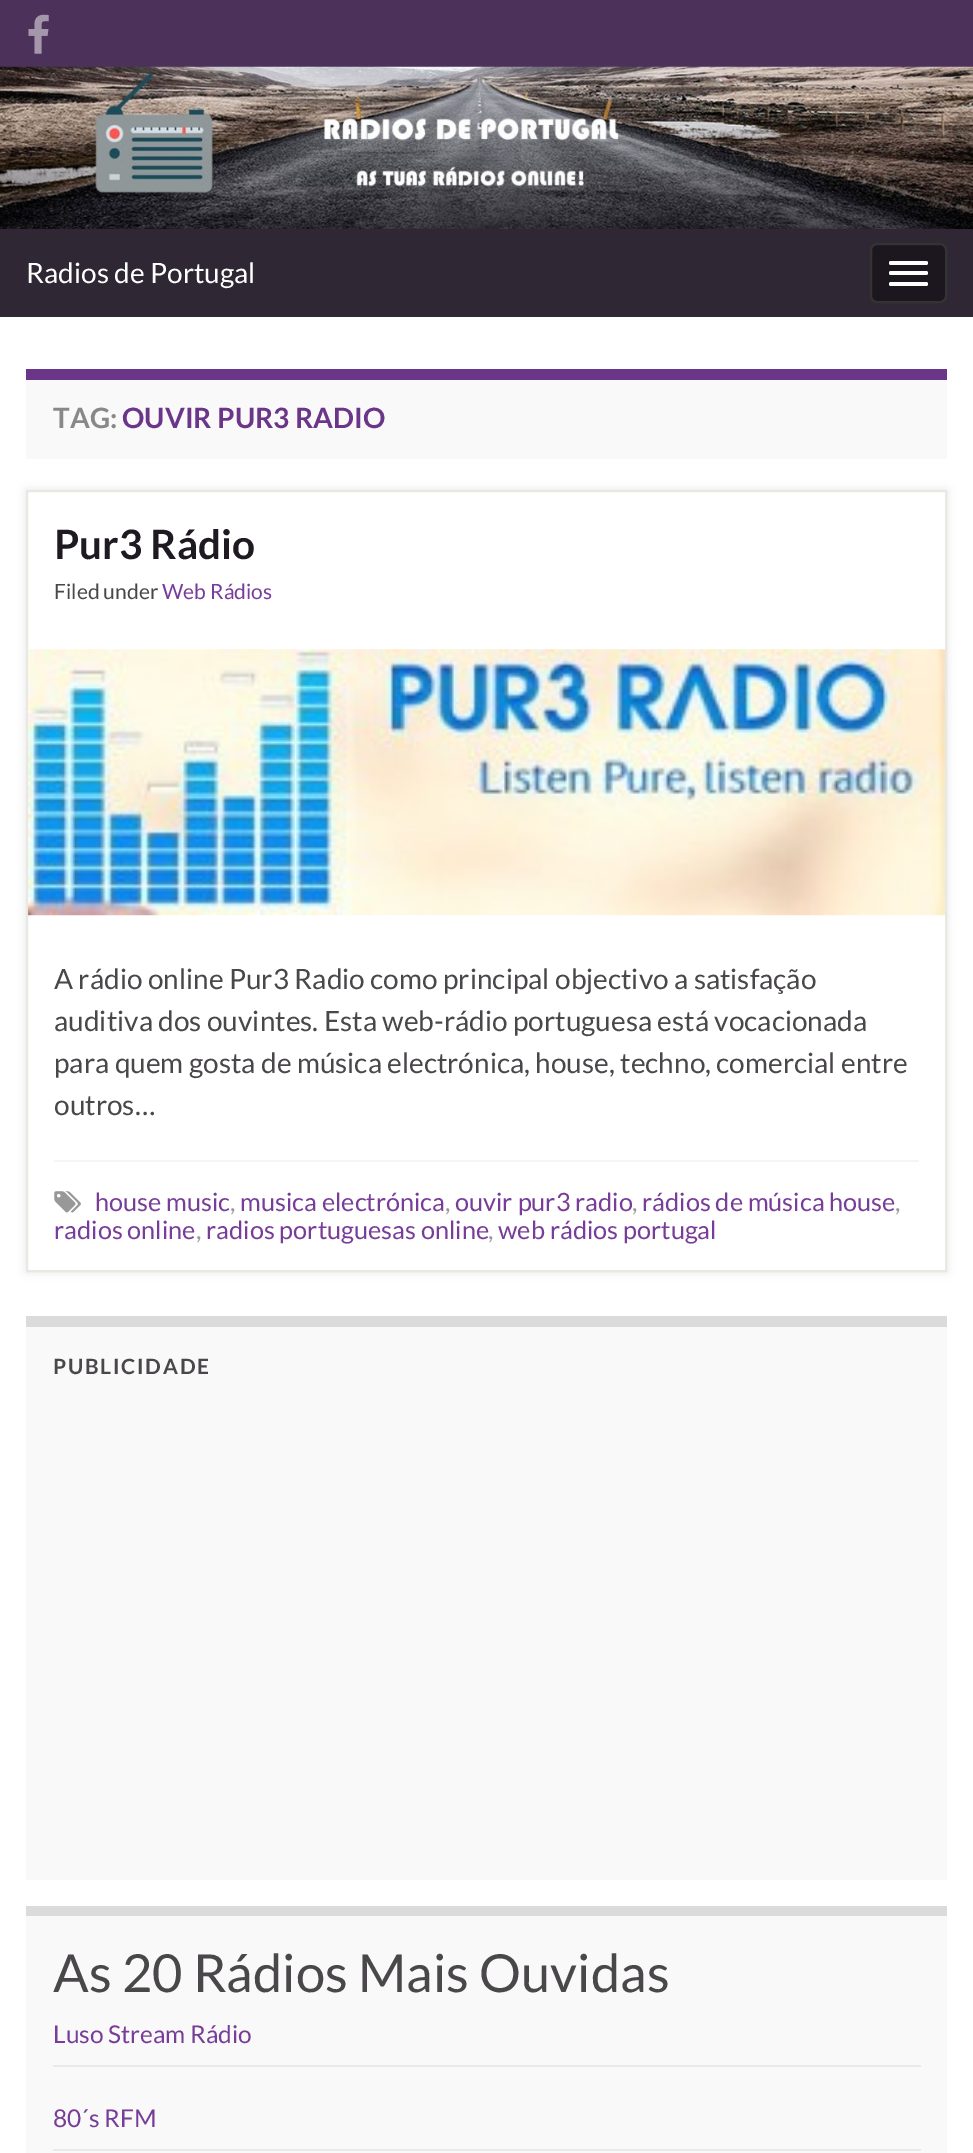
%!PS
<< /PageSize [973 2153] /PageUsesTransparency true >> setpagedevice
/alpha { dup .setfillconstantalpha .setstrokeconstantalpha } def
/roundrect { 5 dict begin { /r /h /w /y /x } { exch def } forall
  x r add y moveto x w add y 2 copy h add r arct x w add y h add x 1 index r arct
  x y h add x y r arct x y 2 copy exch w add exch r arct closepath end } def
/shadow { 12 dict begin { /a /b /q /h /w /y /x } { exch def } forall gsave /was 0 def
  9 -2 -9 { dup b mul 4 div /e exch def 1 sub .425 mul 2.718 exch exp 1 add a .99 .min exch div /now exch def
    1 1 now sub 1 was sub div sub alpha /was now def
    w h .min e 2 mul add 0 gt { x e sub y e sub w e 2 mul add h e 2 mul add
      q e add b .6 mul add w h .min 2 div e add .min 0 .max roundrect fill } if } for grestore end } def
/picture { 5 dict begin { /h /w /y /x /name } { exch def } forall
  gsave x y translate w h scale
  w h 8 [w 0 0 h 0 0] name (r) file false 3 colorimage grestore end } def
0 .pushpdf14devicefilter
0 2153 translate 1 -1 scale
4 setmiterlimit
0.298 0.192 0.353 setrgbcolor
0 0 973 2153 rectfill
(img1.rgb) 28 14 21 40 picture
(img2.rgb) 0 66 973 163 picture
0.184 0.153 0.2 setrgbcolor
0 229 973 88 rectfill
/Lato-Regular [28 0 0 -28 0 0] selectfont
1 setgray
26 283 moveto (Radios de Portugal) show
0.11 0.09 0.122 setrgbcolor
871 244 75 58 6 roundrect gsave fill grestore
0.2 setgray
2 setlinewidth
stroke
1 setgray
889 261 39 4 2 roundrect fill
889 271 39 4 2 roundrect fill
889 282 39 4 2 roundrect fill
0 317 973 1836 rectfill
0.976 setgray
26 380 921 79 rectfill
0.42 0.208 0.537 setrgbcolor
26 369 921 11 rectfill
/Lato-Bold [28 0 0 -28 0 0] selectfont
0.533 setgray
53 428 moveto (TAG:) show
0.42 0.208 0.537 setrgbcolor
122 428 moveto (OUVIR PUR3 RADIO) show
0 setgray
26 490 921 782 0 4.5 0.1 shadow
1 setgray
newpath 27 491 moveto 946 491 lineto 946 1271 lineto 27 1271 lineto closepath gsave fill grestore
0.914 0.91 0.89 setrgbcolor
stroke
/Lato-Bold [40.5 0 0 -40.5 0 0] selectfont
0.122 0.102 0.133 setrgbcolor
54 559 moveto (Pur3 Rádio) show
/Lato-Regular [21 0 0 -21 0 0] selectfont
0.29 0.278 0.294 setrgbcolor
54 599 moveto (Filed under) show
0.471 0.239 0.596 setrgbcolor
162 599 moveto (Web Rádios) show
(img3.rgb) 28 649 917 267 picture
/Lato-Regular [28 0 0 -28 0 0] selectfont
0.29 0.278 0.294 setrgbcolor
54 989 moveto (A rádio online Pur3 Radio como principal objectivo a satisfação) show
54 1031 moveto (auditiva dos ouvintes. Esta web-rádio portuguesa está vocacionada) show
54 1073 moveto (para quem gosta de música electrónica, house, techno, comercial entre) show
54 1115 moveto (outros…) show
0.961 setgray
54 1160 865 2 rectfill
(img4.rgb) 54 1191 27 22 picture
/Lato-Regular [25.25 0 0 -25.25 0 0] selectfont
0.471 0.239 0.596 setrgbcolor
95 1211 moveto (house music) show
0.596 setgray
230 1211 moveto (,) show
0.471 0.239 0.596 setrgbcolor
240 1211 moveto (musica electrónica) show
0.596 setgray
445 1211 moveto (,) show
0.471 0.239 0.596 setrgbcolor
455 1211 moveto (ouvir pur3 radio) show
0.596 setgray
632 1211 moveto (,) show
0.471 0.239 0.596 setrgbcolor
642 1211 moveto (rádios de música house) show
0.596 setgray
895 1211 moveto (,) show
0.471 0.239 0.596 setrgbcolor
54 1239 moveto (radios online) show
0.596 setgray
196 1239 moveto (,) show
0.471 0.239 0.596 setrgbcolor
206 1239 moveto (radios portuguesas online) show
0.596 setgray
488 1239 moveto (,) show
0.471 0.239 0.596 setrgbcolor
498 1239 moveto (web rádios portugal) show
0.976 setgray
26 1327 921 553 rectfill
0.859 setgray
26 1316 921 11 rectfill
/Lato-Bold [21 0 0 -21 0 0] selectfont
0.29 0.278 0.294 setrgbcolor
53 1374 moveto 1.75 0 (PUBLICIDADE) ashow
0.976 setgray
26 1916 921 237 rectfill
0.859 setgray
26 1906 921 10 rectfill
/Lato-Regular [52.5 0 0 -52.5 0 0] selectfont
0.29 0.278 0.294 setrgbcolor
53 1992 moveto (As 20 Rádios Mais Ouvidas) show
0.914 setgray
53 2065 868 2 rectfill
/Lato-Regular [24.5 0 0 -24.5 0 0] selectfont
0.471 0.239 0.596 setrgbcolor
53 2043 moveto (Luso Stream Rádio) show
0.914 setgray
53 2149 868 2 rectfill
0.471 0.239 0.596 setrgbcolor
53 2127 moveto (80´s RFM) show
.poppdf14devicefilter showpage
